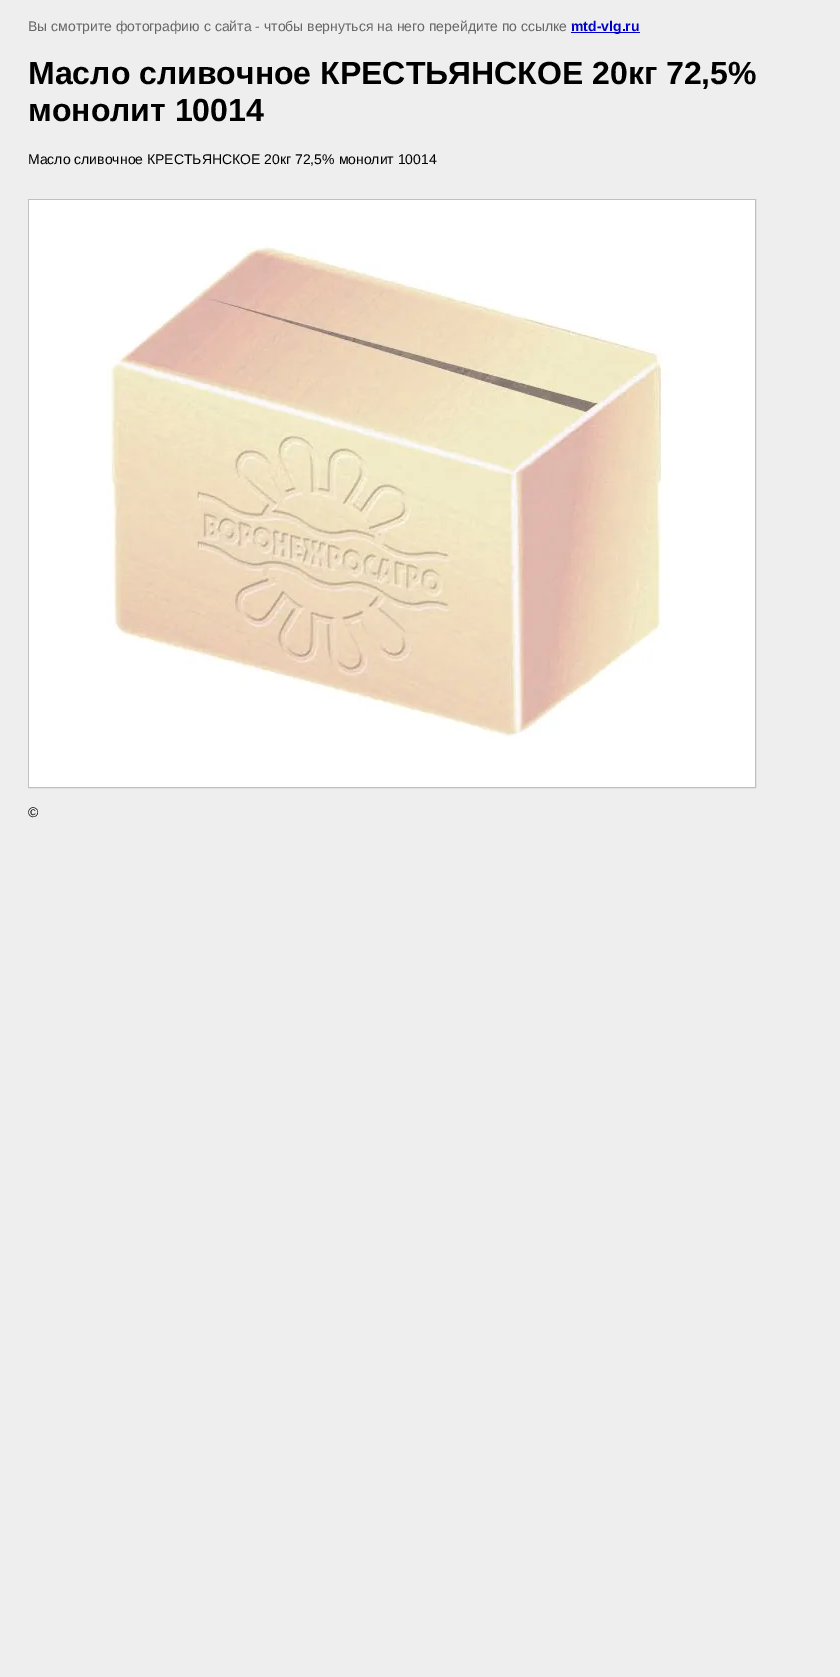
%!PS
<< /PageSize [840 1677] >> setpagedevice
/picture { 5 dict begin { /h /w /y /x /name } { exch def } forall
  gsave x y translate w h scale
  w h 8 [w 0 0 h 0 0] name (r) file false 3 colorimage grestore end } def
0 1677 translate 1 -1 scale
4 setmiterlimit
0.933 setgray
0 0 840 1677 rectfill
/LiberationSans-Regular [14 0 0 -14 0 0] selectfont
0.4 setgray
28 31 moveto (Вы смотрите фотографию с сайта - чтобы вернуться на него перейдите по ссылке) show
0 0 0.8 setrgbcolor
571 32 69 1 rectfill
/LiberationSans-Bold [14 0 0 -14 0 0] selectfont
571 31 moveto (mtd-vlg.ru) show
/LiberationSans-Bold [32 0 0 -32 0 0] selectfont
0 setgray
28 84 moveto (Масло сливочное КРЕСТЬЯНСКОЕ 20кг 72,5%) show
28 121 moveto (монолит 10014) show
/LiberationSans-Regular [14 0 0 -14 0 0] selectfont
28 164 moveto (Масло сливочное КРЕСТЬЯНСКОЕ 20кг 72,5% монолит 10014) show
0.753 setgray
28.5 199.5 727 588 rectstroke
(img1.rgb) 29 200 726 587 picture
0 setgray
28 817 moveto (©) show
showpage
